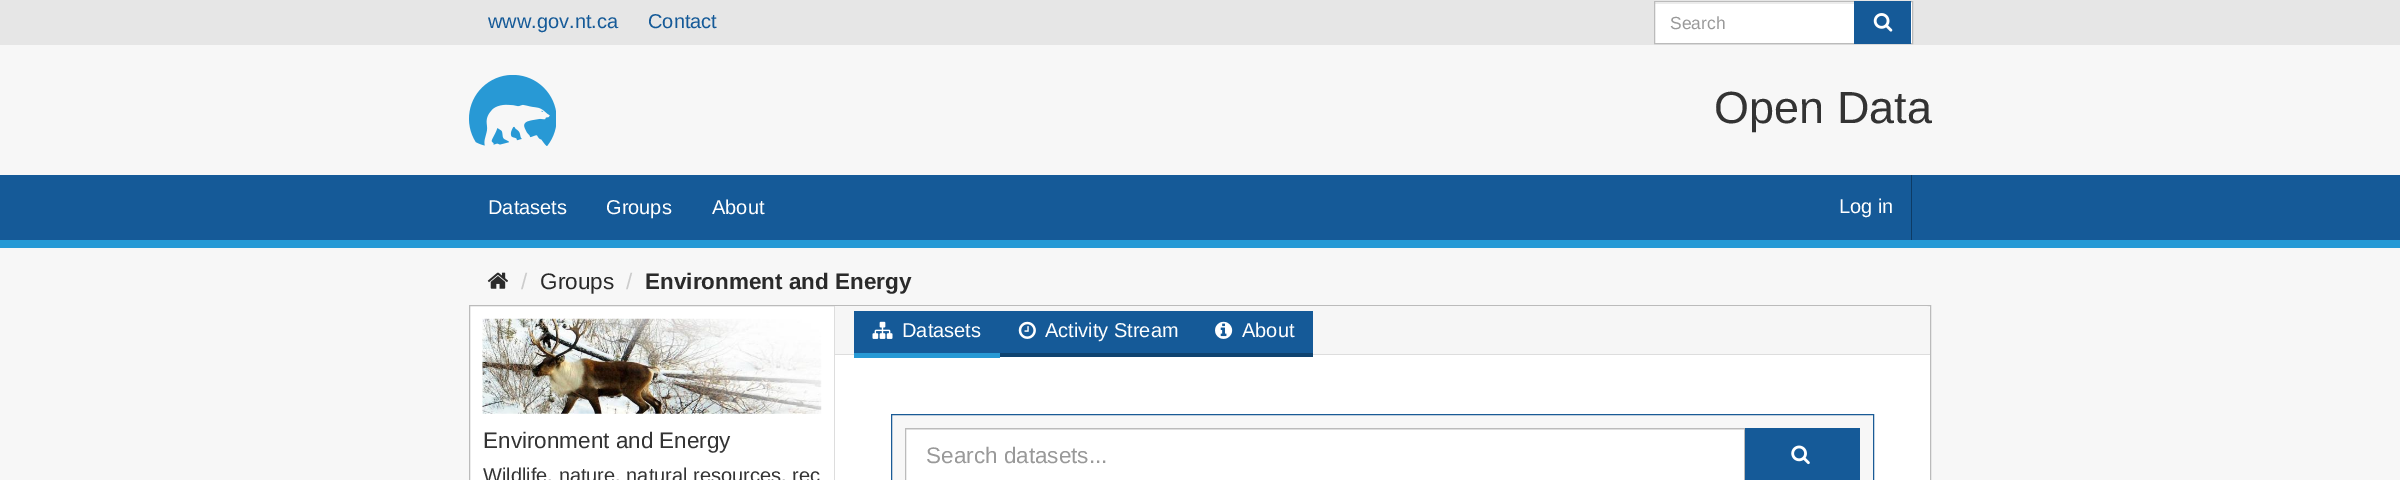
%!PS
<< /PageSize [2400 480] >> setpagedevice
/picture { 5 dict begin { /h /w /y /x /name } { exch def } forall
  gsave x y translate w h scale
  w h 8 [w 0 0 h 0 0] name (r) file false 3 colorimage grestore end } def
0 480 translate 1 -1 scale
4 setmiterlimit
0.969 setgray
0 0 2400 480 rectfill
0.902 setgray
0 0 2400 45 rectfill
/LiberationSans-Regular [20 0 0 -20 0 0] selectfont
0.082 0.353 0.596 setrgbcolor
488 28 moveto (www.gov.nt.ca) show
648 28 moveto (Contact) show
1 setgray
1655 2 257 41 rectfill
0.925 setgray
1655 3 199 1 rectfill
0.733 setgray
1654.5 1.5 258 42 rectstroke
/LiberationSans-Regular [17.5 0 0 -17.5 0 0] selectfont
0.6 setgray
1670 29 moveto (Search) show
0.082 0.353 0.596 setrgbcolor
1854 1 57 43 rectfill
(img1.rgb) 1873 13 20 19 picture
(img2.rgb) 469 75 87 71 picture
/LiberationSans-Regular [45 0 0 -45 0 0] selectfont
0.2 setgray
1714 123 moveto (Open Data) show
0.082 0.353 0.596 setrgbcolor
0 175 2400 65 rectfill
0.149 0.6 0.835 setrgbcolor
0 240 2400 8 rectfill
/LiberationSans-Regular [20 0 0 -20 0 0] selectfont
1 setgray
488 214 moveto (Datasets) show
606 214 moveto (Groups) show
712 214 moveto (About) show
0.051 0.231 0.396 setrgbcolor
1911 175 1 65 rectfill
1 setgray
1839 213 moveto (Log in) show
(img3.rgb) 487 272 21 17 picture
/LiberationSans-Regular [22.5 0 0 -22.5 0 0] selectfont
0.8 setgray
521 289 moveto (/) show
0.165 setgray
540 289 moveto (Groups) show
0.8 setgray
626 289 moveto (/) show
/LiberationSans-Bold [22.5 0 0 -22.5 0 0] selectfont
0.165 setgray
645 289 moveto (Environment and Energy) show
1 setgray
newpath 469.5 305.5 moveto 1930.5 305.5 lineto 1930.5 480.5 lineto 469.5 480.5 lineto closepath gsave fill grestore
0.733 setgray
stroke
(img4.rgb) 482 318 340 96 picture
/LiberationSans-Regular [22.5 0 0 -22.5 0 0] selectfont
0.2 setgray
483 448 moveto (Environment and Energy) show
/LiberationSans-Regular [20 0 0 -20 0 0] selectfont
483 482 moveto (Wildlife, nature, natural resources, rec) show
0.867 setgray
834 306 1 174 rectfill
0.965 setgray
newpath 835 306 moveto 1926 306 lineto 1928 306 1930 308 1930 310 curveto 1930 355 lineto 835 355 lineto closepath fill
0.867 setgray
835 354 1095 1 rectfill
0.082 0.353 0.596 setrgbcolor
854 311 459 42 rectfill
0.149 0.6 0.835 setrgbcolor
854 353 146 5 rectfill
(img5.rgb) 872 321 21 18 picture
1 setgray
902 337 moveto (Datasets) show
0.059 0.263 0.439 setrgbcolor
1000 353 313 4 rectfill
(img6.rgb) 1018 321 18 18 picture
1 setgray
1045 337 moveto (Activity Stream) show
(img7.rgb) 1215 321 18 18 picture
1242 337 moveto (About) show
0.969 setgray
newpath 891.5 414.5 moveto 1873.5 414.5 lineto 1873.5 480.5 lineto 891.5 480.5 lineto closepath gsave fill grestore
0.102 0.357 0.588 setrgbcolor
stroke
1 setgray
906 430 838 50 rectfill
0.925 setgray
906 429 838 1 rectfill
0.733 setgray
905.5 428.5 839 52 rectstroke
/LiberationSans-Regular [22.5 0 0 -22.5 0 0] selectfont
0.6 setgray
926 463 moveto (Search datasets...) show
0.082 0.353 0.596 setrgbcolor
1745 428 115 52 rectfill
(img8.rgb) 1791 445 19 20 picture
showpage
